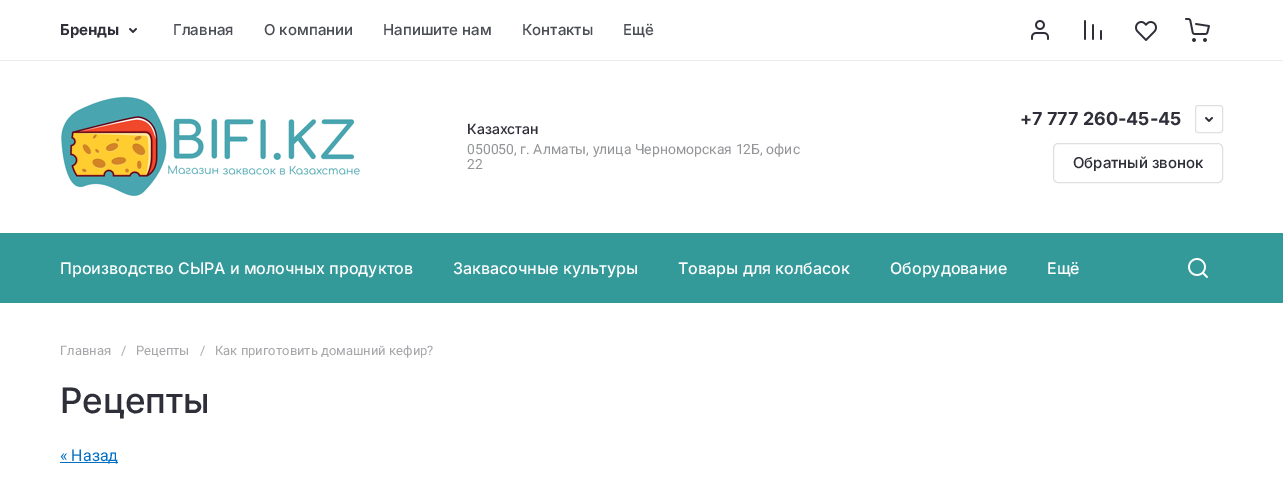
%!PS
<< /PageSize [1283 504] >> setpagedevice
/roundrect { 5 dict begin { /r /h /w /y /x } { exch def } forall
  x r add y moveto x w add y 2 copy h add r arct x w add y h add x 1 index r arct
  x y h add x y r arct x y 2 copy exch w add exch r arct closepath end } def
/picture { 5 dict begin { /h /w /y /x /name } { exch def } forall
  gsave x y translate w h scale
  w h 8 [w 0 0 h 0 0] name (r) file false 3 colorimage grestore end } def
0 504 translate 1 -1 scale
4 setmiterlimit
1 setgray
0 0 1283 504 rectfill
0.922 setgray
0 60 1283 1 rectfill
/Inter-Bold [15 0 0 -15 0 0] selectfont
0.18 0.184 0.22 setrgbcolor
60 35 moveto (Бренды) show
(img1.rgb) 129 28 8 5 picture
/Inter-Medium [15 0 0 -15 0 0] selectfont
0.294 0.306 0.329 setrgbcolor
173 35 moveto (Главная) show
264 35 moveto (О компании) show
383 35 moveto (Напишите нам) show
522 35 moveto (Контакты) show
623 35 moveto (Ещё) show
(img2.rgb) 1031 20 18 20 picture
(img3.rgb) 1084 20 18 20 picture
(img4.rgb) 1135 21 22 20 picture
(img5.rgb) 1185 18 25 24 picture
(img6.rgb) 61 96 299 100 picture
/Inter-Medium [14 0 0 -14 0 0] selectfont
0.18 0.184 0.22 setrgbcolor
467 134 moveto (Казахстан) show
/Roboto-Regular [14 0 0 -14 0 0] selectfont
0.576 0.584 0.596 setrgbcolor
467 154 moveto (050050, г. Алматы, улица Черноморская 12Б, офис) show
467 169 moveto (22) show
/Inter-Bold [18 0 0 -18 0 0] selectfont
0.18 0.184 0.22 setrgbcolor
1020 125 moveto (+7 777 260-45-45) show
0.878 setgray
1195.5 105.5 27 27 2.5 roundrect stroke
(img1.rgb) 1205 117 8 5 picture
1053.5 143.5 169 39 4.5 roundrect stroke
/Inter-Medium [15 0 0 -15 0 0] selectfont
0.18 0.184 0.22 setrgbcolor
1073 168 moveto (Обратный звонок) show
0.2 0.6 0.6 setrgbcolor
0 233 1283 70 rectfill
/Inter-Medium [16 0 0 -16 0 0] selectfont
1 setgray
60 274 moveto (Производство СЫРА и молочных продуктов) show
453 274 moveto (Заквасочные культуры) show
678 274 moveto (Товары для колбасок) show
890 274 moveto (Оборудование) show
1047 274 moveto (Ещё) show
(img7.rgb) 1188 258 20 20 picture
/Roboto-Regular [13 0 0 -13 0 0] selectfont
0.647 0.655 0.667 setrgbcolor
60 355 moveto (Главная) show
121 355 moveto (/) show
136 355 moveto (Рецепты) show
200 355 moveto (/) show
215 355 moveto (Как приготовить домашний кефир?) show
/Inter-Medium [35 0 0 -35 0 0] selectfont
0.18 0.184 0.22 setrgbcolor
60 413 moveto (Рецепты) show
0.016 0.439 0.769 setrgbcolor
60 462 58 1 rectfill
/Roboto-Regular [16 0 0 -16 0 0] selectfont
60 461 moveto (« Назад) show
showpage
